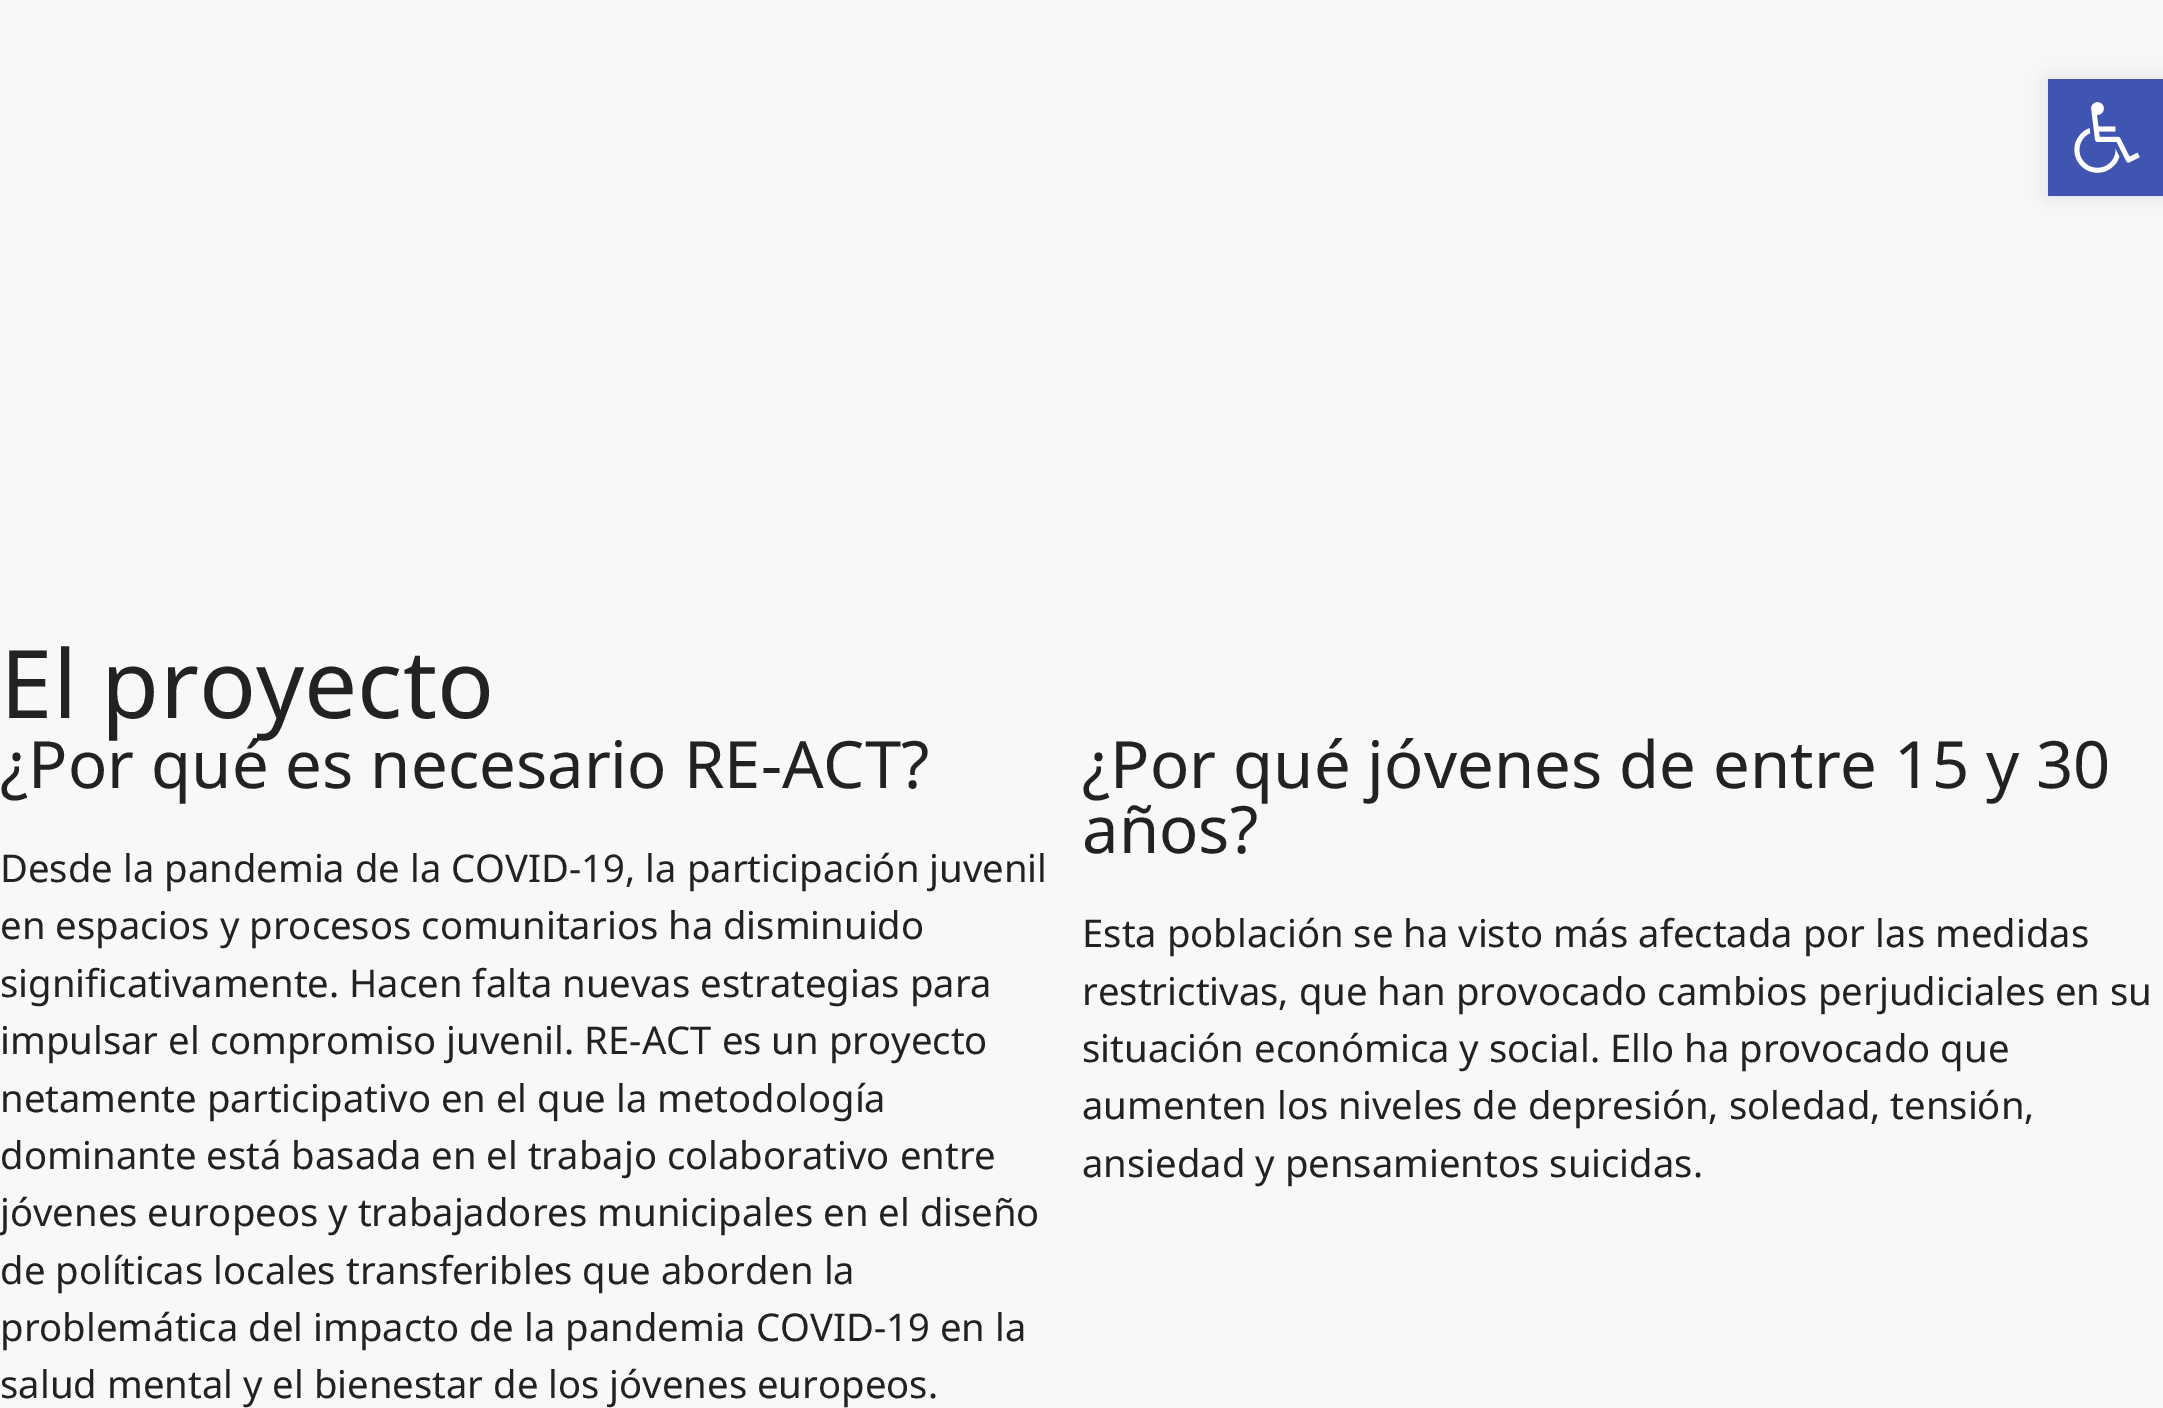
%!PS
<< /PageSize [2163 1408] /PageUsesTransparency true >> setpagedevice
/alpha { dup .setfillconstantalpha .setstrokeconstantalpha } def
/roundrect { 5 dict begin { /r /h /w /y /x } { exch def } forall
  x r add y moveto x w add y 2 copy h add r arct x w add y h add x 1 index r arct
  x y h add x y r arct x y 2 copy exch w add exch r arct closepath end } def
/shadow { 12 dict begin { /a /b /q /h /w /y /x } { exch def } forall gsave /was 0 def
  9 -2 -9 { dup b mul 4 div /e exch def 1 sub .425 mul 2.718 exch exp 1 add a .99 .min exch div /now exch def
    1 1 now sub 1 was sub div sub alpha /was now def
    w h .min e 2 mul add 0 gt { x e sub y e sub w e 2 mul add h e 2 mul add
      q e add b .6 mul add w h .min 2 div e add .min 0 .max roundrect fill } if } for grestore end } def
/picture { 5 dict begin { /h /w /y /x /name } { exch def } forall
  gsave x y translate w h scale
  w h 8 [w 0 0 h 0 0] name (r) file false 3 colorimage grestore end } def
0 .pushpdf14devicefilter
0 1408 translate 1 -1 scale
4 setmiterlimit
0.969 0.973 0.976 setrgbcolor
0 0 2163 1408 rectfill
0 setgray
2048 79 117 117 0 11 0.1 shadow
0.251 0.329 0.698 setrgbcolor
2048 79 115 117 rectfill
(img1.rgb) 2074 102 66 71 picture
/NotoSans-Regular [94.5 0 0 -94.5 0 0] selectfont
0.133 setgray
0 718 moveto (El proyecto) show
/NotoSans-Regular [65.25 0 0 -65.25 0 0] selectfont
0 788 moveto (¿Por qué es necesario RE-ACT?) show
/NotoSans-Regular [38.25 0 0 -38.25 0 0] selectfont
0 882 moveto (Desde la pandemia de la COVID-19, la participación juvenil) show
0 939 moveto (en espacios y procesos comunitarios ha disminuido) show
0 997 moveto (significativamente. Hacen falta nuevas estrategias para) show
0 1054 moveto (impulsar el compromiso juvenil. RE-ACT es un proyecto) show
0 1112 moveto (netamente participativo en el que la metodología) show
0 1169 moveto (dominante está basada en el trabajo colaborativo entre) show
0 1226 moveto (jóvenes europeos y trabajadores municipales en el diseño) show
0 1284 moveto (de políticas locales transferibles que aborden la) show
0 1341 moveto (problemática del impacto de la pandemia COVID-19 en la) show
0 1398 moveto (salud mental y el bienestar de los jóvenes europeos.) show
/NotoSans-Regular [65.25 0 0 -65.25 0 0] selectfont
1082 788 moveto (¿Por qué jóvenes de entre 15 y 30) show
1082 853 moveto (años?) show
/NotoSans-Regular [38.25 0 0 -38.25 0 0] selectfont
1082 947 moveto (Esta población se ha visto más afectada por las medidas) show
1082 1005 moveto (restrictivas, que han provocado cambios perjudiciales en su) show
1082 1062 moveto (situación económica y social. Ello ha provocado que) show
1082 1119 moveto (aumenten los niveles de depresión, soledad, tensión,) show
1082 1177 moveto (ansiedad y pensamientos suicidas.) show
.poppdf14devicefilter showpage
